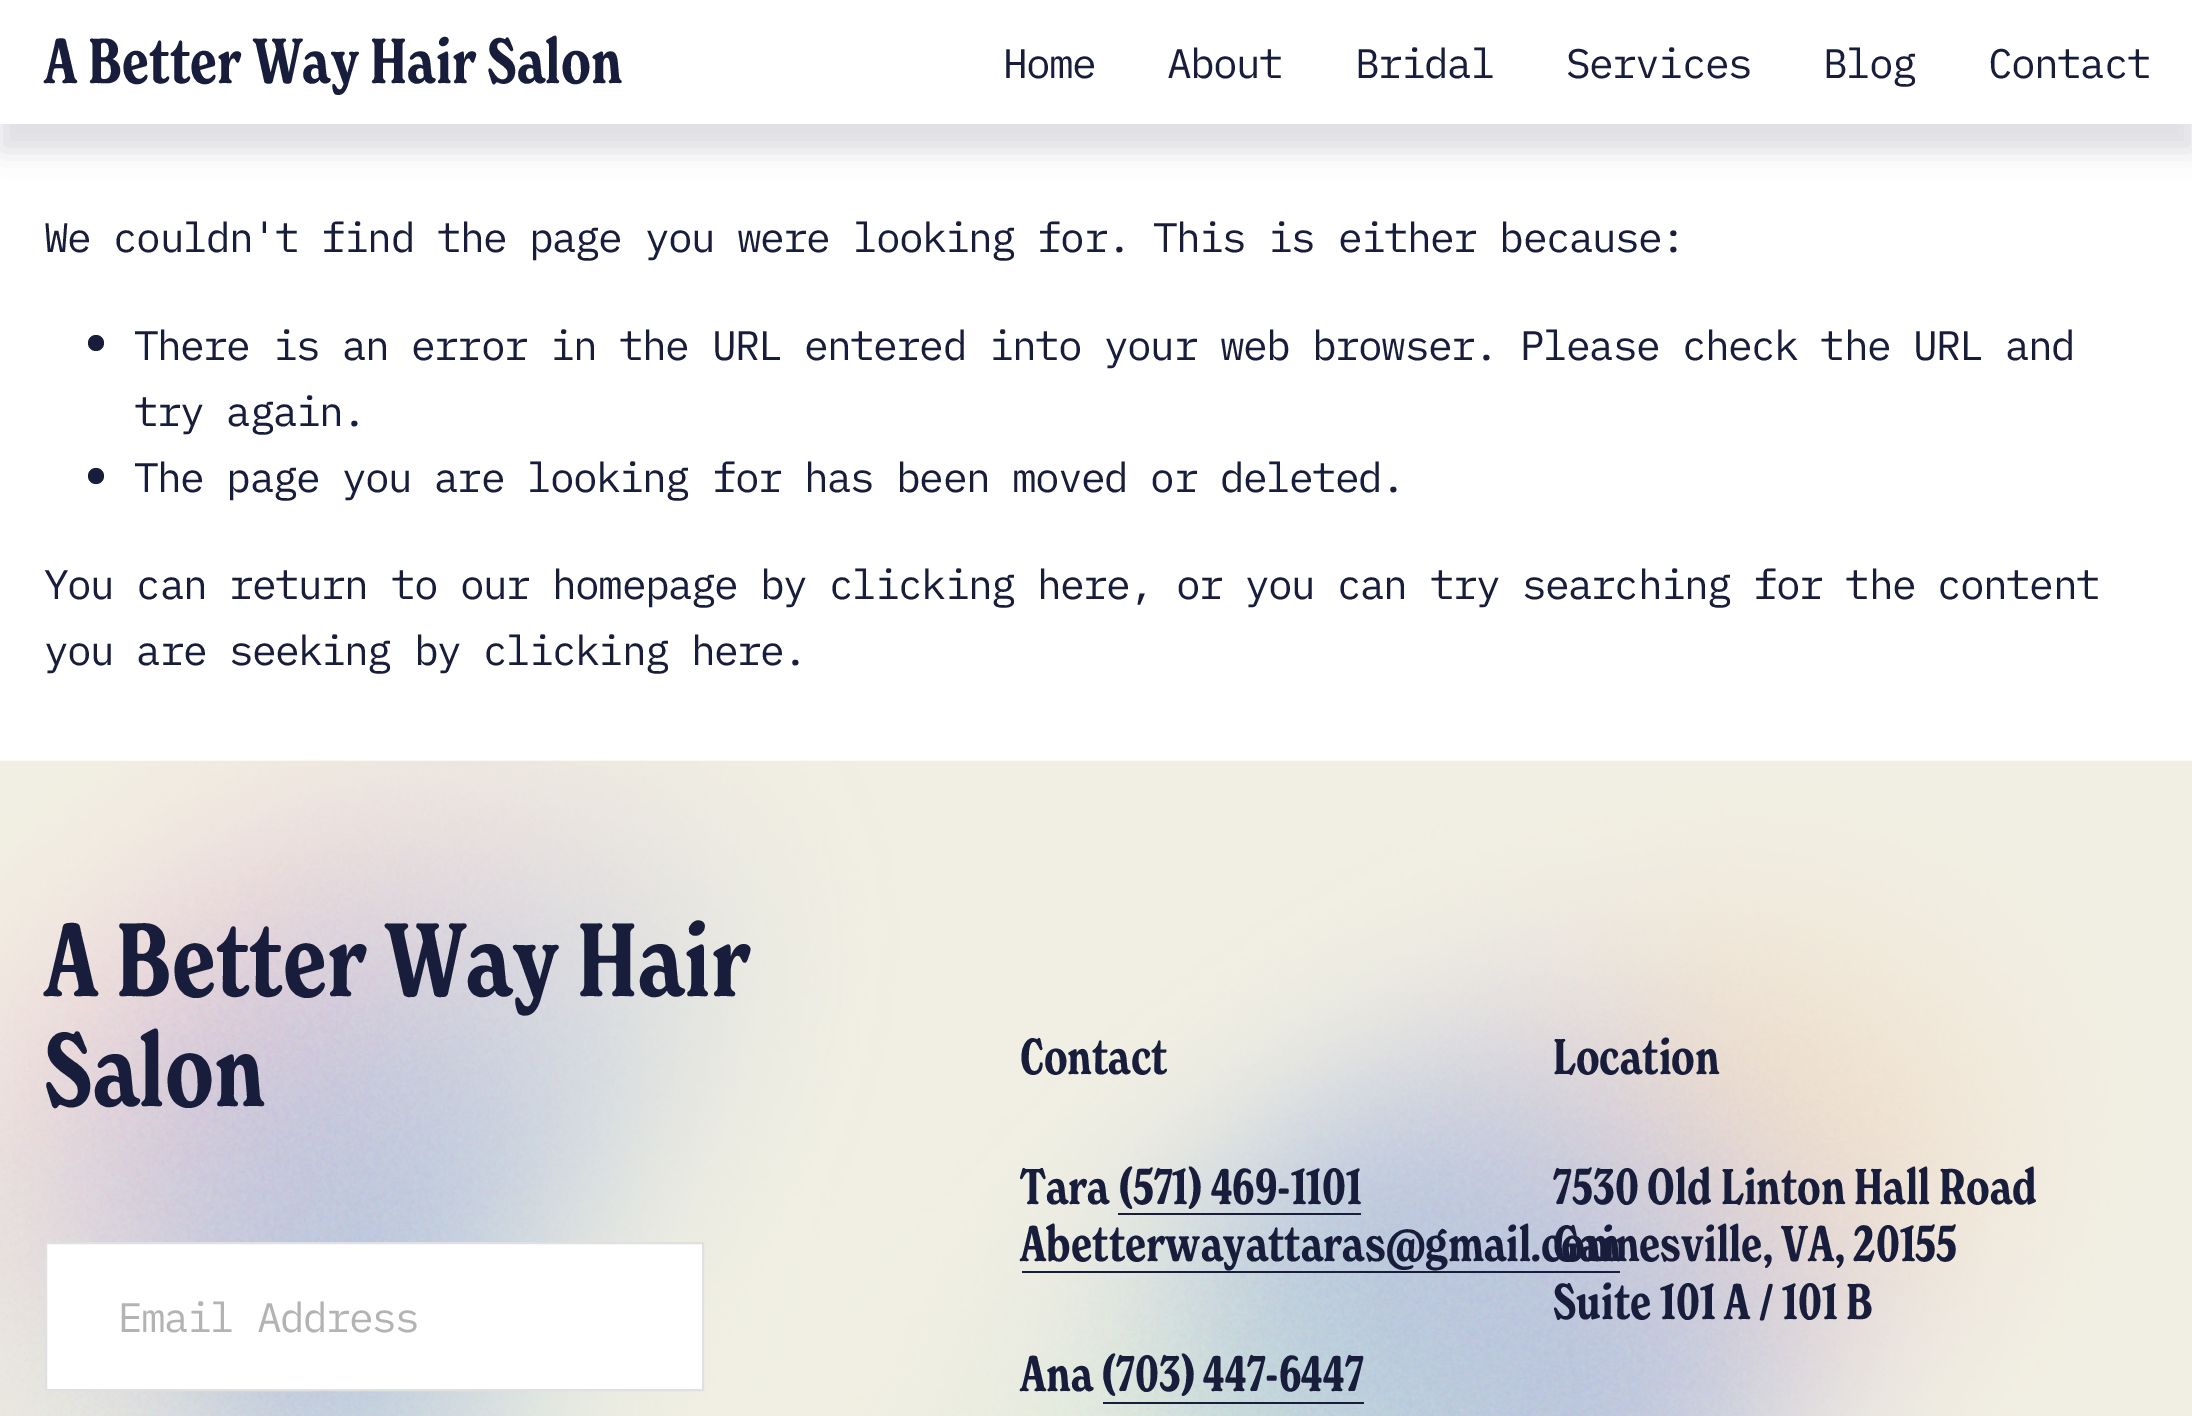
%!PS
<< /PageSize [2192 1416] /PageUsesTransparency true >> setpagedevice
/alpha { dup .setfillconstantalpha .setstrokeconstantalpha } def
/roundrect { 5 dict begin { /r /h /w /y /x } { exch def } forall
  x r add y moveto x w add y 2 copy h add r arct x w add y h add x 1 index r arct
  x y h add x y r arct x y 2 copy exch w add exch r arct closepath end } def
/shadow { 12 dict begin { /a /b /q /h /w /y /x } { exch def } forall gsave /was 0 def
  9 -2 -9 { dup b mul 4 div /e exch def 1 sub .425 mul 2.718 exch exp 1 add a .99 .min exch div /now exch def
    1 1 now sub 1 was sub div sub alpha /was now def
    w h .min e 2 mul add 0 gt { x e sub y e sub w e 2 mul add h e 2 mul add
      q e add b .6 mul add w h .min 2 div e add .min 0 .max roundrect fill } if } for grestore end } def
/picture { 5 dict begin { /h /w /y /x /name } { exch def } forall
  gsave x y translate w h scale
  w h 8 [w 0 0 h 0 0] name (r) file false 3 colorimage grestore end } def
0 .pushpdf14devicefilter
0 1416 translate 1 -1 scale
4 setmiterlimit
1 setgray
0 0 2192 1416 rectfill
gsave
newpath 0 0 moveto 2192 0 lineto 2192 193 lineto 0 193 lineto closepath 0 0 moveto 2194 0 lineto 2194 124 lineto 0 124 lineto closepath eoclip newpath
0.867 0.867 0.886 setrgbcolor
0 27 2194 124 0 13.5 1 shadow
grestore
/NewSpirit-SemiBold [62.25 0 0 -62.25 0 0] selectfont
0.09 0.114 0.227 setrgbcolor
44 83 moveto (A Better Way Hair Salon) show
/IBMPlexMono-Regular [41.25 0 0 -41.25 0 0] selectfont
1003 78 moveto -1.65 0 (Home) ashow
1167 78 moveto -1.65 0 (About) ashow
1355 78 moveto -1.65 0 (Bridal) ashow
1566 78 moveto -1.65 0 (Services) ashow
1823 78 moveto -1.65 0 (Blog) ashow
1988 78 moveto -1.65 0 (Contact) ashow
44 252 moveto -1.65 0 (We couldn't find the page you were looking for. This is either because:) ashow
newpath 96 343 8 0 360 arc closepath fill
134 360 moveto -1.65 0 (There is an error in the URL entered into your web browser. Please check the URL and) ashow
134 426 moveto -1.65 0 (try again.) ashow
newpath 96 476 8 0 360 arc closepath fill
134 492 moveto -1.65 0 (The page you are looking for has been moved or deleted.) ashow
44 599 moveto -1.65 0 (You can return to our homepage by) ashow
829 599 moveto -1.65 0 (clicking here, or you can try searching for the) ashow
1937 599 moveto -1.65 0 (content) ashow
44 665 moveto -1.65 0 (you are seeking by clicking here.) ashow
(img1.rgb) 0 760 2192 656 picture
/NewSpirit-SemiBold [101.75 0 0 -101.75 0 0] selectfont
44 996 moveto (A Better Way Hair) show
44 1106 moveto (Salon) show
1 setgray
newpath 46 1243 moveto 703 1243 lineto 703 1390 lineto 46 1390 lineto closepath gsave fill grestore
0.878 setgray
2 setlinewidth
stroke
/IBMPlexMono-Regular [41.25 0 0 -41.25 0 0] selectfont
0.702 setgray
118 1332 moveto -1.65 0 (Email Address) ashow
/NewSpirit-SemiBold [49.2 0 0 -49.2 0 0] selectfont
0.09 0.114 0.227 setrgbcolor
1020 1074 moveto (Contact) show
1020 1204 moveto (Tara \(571\) 469-1101) show
1118 1213 243 2 rectfill
1020 1261 moveto (Abetterwayattaras@gmail.com) show
1022 1271 598 2 rectfill
1020 1391 moveto (Ana \(703\) 447-6447) show
1103 1402 261 2 rectfill
1553 1074 moveto (Location) show
1553 1204 moveto (7530 Old Linton Hall Road) show
1553 1261 moveto (Gainesville, VA, 20155) show
1553 1319 moveto (Suite 101 A / 101 B) show
.poppdf14devicefilter showpage
